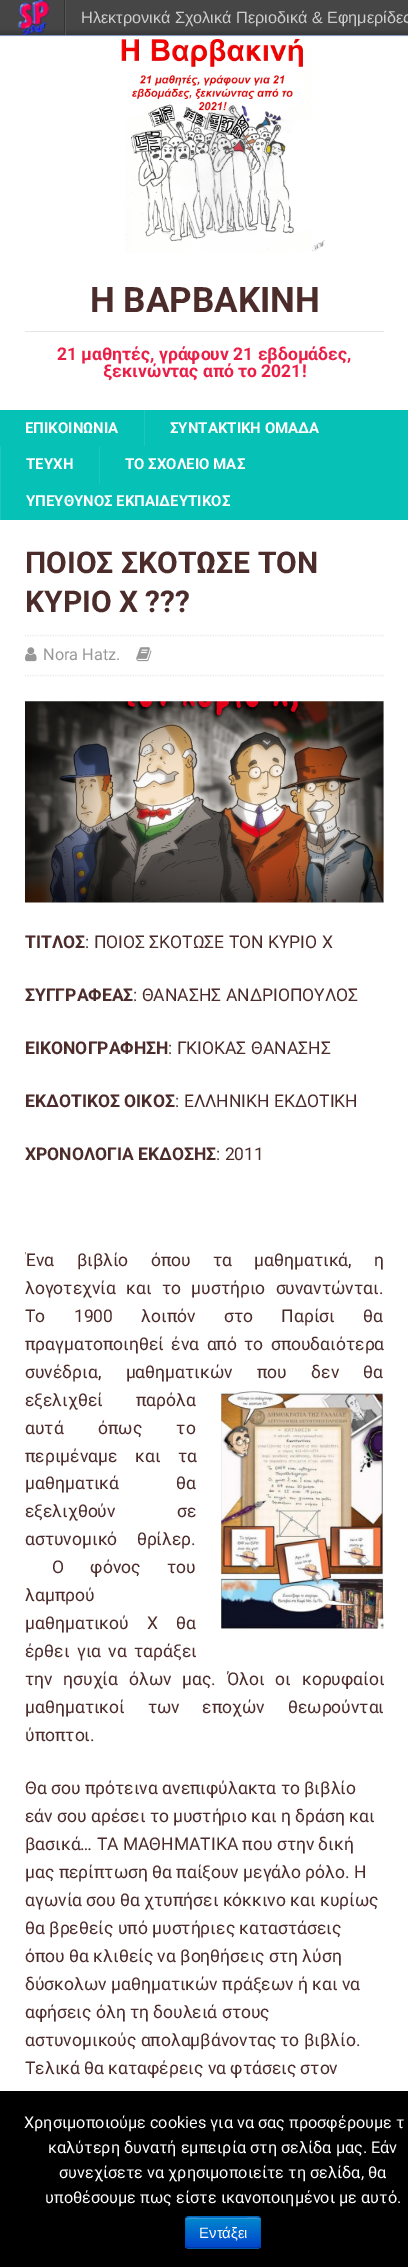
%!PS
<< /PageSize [408 2267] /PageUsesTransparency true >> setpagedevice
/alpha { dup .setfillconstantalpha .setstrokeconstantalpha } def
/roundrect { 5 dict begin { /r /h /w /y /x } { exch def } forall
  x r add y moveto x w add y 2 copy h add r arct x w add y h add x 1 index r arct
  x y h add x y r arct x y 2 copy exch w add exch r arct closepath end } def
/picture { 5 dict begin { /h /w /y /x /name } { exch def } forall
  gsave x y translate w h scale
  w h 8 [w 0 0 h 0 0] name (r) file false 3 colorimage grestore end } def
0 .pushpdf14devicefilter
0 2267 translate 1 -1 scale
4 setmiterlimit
1 setgray
0 0 408 2267 rectfill
gsave newpath 0 0 moveto 408 0 lineto 408 35 lineto 0 35 lineto closepath clip newpath
<< /ShadingType 2 /ColorSpace /DeviceRGB /Coords [375 35 375 0] /Extend [true true] /Function << /FunctionType 3 /Domain [0 1] /Functions [<< /FunctionType 2 /Domain [0 1] /C0 [0.216 0.216 0.216] /C1 [0.275 0.275 0.275] /N 1 >> << /FunctionType 2 /Domain [0 1] /C0 [0.275 0.275 0.275] /C1 [0.275 0.275 0.275] /N 1 >>] /Bounds [0.18] /Encode [0 1 0 1] >> >> shfill grestore
0.333 setgray
65 0 1 35 rectfill
0.2 setgray
64 0 1 35 rectfill
(img1.rgb) 17 0 32 35 picture
/LiberationSans-Regular [16.25 0 0 -16.25 0 0] selectfont
0.8 setgray
81 23 moveto (Ηλεκτρονικά Σχολικά Περιοδικά & Εφημερίδες) show
(img2.rgb) 0 35 408 218 picture
/Roboto-Bold [35 0 0 -35 0 0] selectfont
0.298 0.169 0.169 setrgbcolor
90 312 moveto (Η ΒΑΡΒΑΚΙΝΗ) show
0.898 setgray
25 331 359 1 rectfill
/Roboto-Bold [17.5 0 0 -17.5 0 0] selectfont
0.914 0.122 0.282 setrgbcolor
57 360 moveto (21 μαθητές, γράφουν 21 εβδομάδες,) show
103 377 moveto (ξεκινώντας από το 2021!) show
0.02 0.757 0.714 setrgbcolor
0 410 408 110 rectfill
/Roboto-Bold [15 0 0 -15 0 0] selectfont
1 setgray
25 433 moveto (ΕΠΙΚΟΙΝΩΝΙΑ) show
0.118 0.78 0.741 setrgbcolor
144 410 1 36 rectfill
1 setgray
170 433 moveto (ΣΥΝΤΑΚΤΙΚΗ ΟΜΑΔΑ) show
0.118 0.78 0.741 setrgbcolor
0 446 1 74 rectfill
1 setgray
26 469 moveto (ΤΕΥΧΗ) show
0.118 0.78 0.741 setrgbcolor
99 446 1 38 rectfill
1 setgray
125 469 moveto (ΤΟ ΣΧΟΛΕΙΟ ΜΑΣ) show
26 506 moveto (ΥΠΕΥΘΥΝΟΣ ΕΚΠΑΙΔΕΥΤΙΚΟΣ) show
/Roboto-Bold [30 0 0 -30 0 0] selectfont
0.298 0.169 0.169 setrgbcolor
25 573 moveto (ΠΟΙΟΣ ΣΚΟΤΩΣΕ ΤΟΝ) show
25 612 moveto (ΚΥΡΙΟ Χ ???) show
0.922 setgray
1.2 setlinewidth
[1.25 1.25] 0 setdash
newpath 25 635.5 moveto 384 635.5 lineto stroke
newpath 25 675.5 moveto 384 675.5 lineto stroke
(img3.rgb) 25 647 12 15 picture
/Roboto-Regular [16.25 0 0 -16.25 0 0] selectfont
0.592 setgray
43 660 moveto (Nora Hatz.) show
(img4.rgb) 136 647 16 15 picture
(img5.rgb) 25 701 359 202 picture
/Roboto-Bold [17.5 0 0 -17.5 0 0] selectfont
0.298 0.169 0.169 setrgbcolor
25 948 moveto (ΤΙΤΛΟΣ) show
/Roboto-Regular [17.5 0 0 -17.5 0 0] selectfont
85 948 moveto (: ΠΟΙΟΣ ΣΚΟΤΩΣΕ ΤΟΝ ΚΥΡΙΟ Χ) show
/Roboto-Bold [17.5 0 0 -17.5 0 0] selectfont
25 1001 moveto (ΣΥΓΓΡΑΦΕΑΣ) show
/Roboto-Regular [17.5 0 0 -17.5 0 0] selectfont
133 1001 moveto (: ΘΑΝΑΣΗΣ ΑΝΔΡΙΟΠΟΥΛΟΣ) show
/Roboto-Bold [17.5 0 0 -17.5 0 0] selectfont
25 1054 moveto (ΕΙΚΟΝΟΓΡΑΦΗΣΗ) show
/Roboto-Regular [17.5 0 0 -17.5 0 0] selectfont
168 1054 moveto (: ΓΚΙΟΚΑΣ ΘΑΝΑΣΗΣ) show
/Roboto-Bold [17.5 0 0 -17.5 0 0] selectfont
25 1107 moveto (ΕΚΔΟΤΙΚΟΣ ΟΙΚΟΣ) show
/Roboto-Regular [17.5 0 0 -17.5 0 0] selectfont
175 1107 moveto (: ΕΛΛΗΝΙΚΗ ΕΚΔΟΤΙΚΗ) show
/Roboto-Bold [17.5 0 0 -17.5 0 0] selectfont
25 1160 moveto (ΧΡΟΝΟΛΟΓΙΑ ΕΚΔΟΣΗΣ) show
/Roboto-Regular [17.5 0 0 -17.5 0 0] selectfont
216 1160 moveto (: 2011) show
gsave
25 545 359 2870 rectclip
25 1266 moveto 18 0 32 (Ένα βιβλίο όπου τα μαθηματικά, η) widthshow
grestore
25 1294 moveto 6 0 32 (λογοτεχνία και το μυστήριο συναντώνται.) widthshow
25 1322 moveto 24 0 32 (Το 1900 λοιπόν στο Παρίσι θα) widthshow
25 1350 moveto 3 0 32 (πραγματοποιηθεί ένα από το σπουδαιότερα) widthshow
25 1378 moveto 20 0 32 (συνέδρια, μαθηματικών που δεν θα) widthshow
25 1406 moveto 29 0 32 (εξελιχθεί παρόλ) widthshow
186 1406 moveto (α) show
(img6.rgb) 221 1391 163 238 picture
25 1434 moveto 30 0 32 (αυτά όπως το) widthshow
25 1462 moveto 13 0 32 (περιμέναμε και τα) widthshow
25 1489 moveto 53 0 32 (μαθηματικά θα) widthshow
25 1517 moveto 57 0 32 (εξελιχθούν σε) widthshow
25 1545 moveto 15 0 32 (αστυνομικό θρίλερ.) widthshow
52 1573 moveto 22 0 32 (Ο φόνος του) widthshow
25 1601 moveto (λαμπρού) show
25 1629 moveto 14 0 32 (μαθηματικού Χ θα) widthshow
25 1657 moveto 3 0 32 (έρθει για να ταράξει) widthshow
25 1685 moveto 6.5 0 32 (την ησυχία όλων μας. Όλοι οι κορυφαίοι) widthshow
25 1713 moveto 18.5 0 32 (μαθηματικοί των εποχών θεωρούνται) widthshow
25 1741 moveto (ύποπτοι.) show
25 1794 moveto (Θα σου πρότεινα ανεπιφύλακτα το βιβλίο) show
25 1822 moveto (εάν σου αρέσει το μυστήριο και η δράση και) show
25 1850 moveto (βασικά… ΤΑ ΜΑΘΗΜΑΤΙΚΑ που στην δική) show
25 1878 moveto (μας περίπτωση θα παίξουν μεγάλο ρόλο. Η) show
25 1906 moveto (αγωνία σου θα χτυπήσει κόκκινο και κυρίως) show
25 1934 moveto (θα βρεθείς υπό μυστήριες καταστάσεις) show
25 1962 moveto (όπου θα κλιθείς να βοηθήσεις στη λύση) show
25 1990 moveto (δύσκολων μαθηματικών πράξεων ή και να) show
25 2018 moveto (αφήσεις όλη τη δουλειά στους) show
25 2046 moveto (αστυνομικούς απολαμβάνοντας το βιβλίο.) show
25 2074 moveto (Τελικά θα καταφέρεις να φτάσεις στον) show
0 setgray
0 2091 408 176 rectfill
/Roboto-Regular [16.25 0 0 -16.25 0 0] selectfont
1 setgray
24 2128 moveto (Χρησιμοποιούμε cookies για να σας προσφέρουμε τ) show
48 2153 moveto (καλύτερη δυνατή εμπειρία στη σελίδα μας. Εάν) show
59 2178 moveto (συνεχίσετε να χρησιμοποιείτε τη σελίδα, θα) show
45 2203 moveto (υποθέσουμε πως είστε ικανοποιημένοι με αυτό.) show
0 0.427 0.8 setrgbcolor
185 2216 76 33 4 roundrect fill
gsave
185 2216 76 33 4 roundrect clip newpath
gsave newpath 185 2218 moveto 261 2218 lineto 261 2248 lineto 185 2248 lineto closepath clip newpath
<< /ShadingType 2 /ColorSpace /DeviceRGB /Coords [223 2218 223 2248] /Extend [true true] /Function << /FunctionType 2 /Domain [0 1] /C0 [0 0.533 0.8] /C1 [0 0.267 0.8] /N 1 >> >> shfill grestore
grestore
0.2 alpha
1 setgray
newpath 189 2219 moveto 258 2219 lineto 259 2219 260 2220 260 2221 curveto 260 2215 247 2218 246 2218 curveto 200 2218 lineto 199 2218 186 2215 186 2221 curveto 186 2220 187 2219 189 2219 curveto closepath fill
0.25 alpha
0 setgray
[] 0 setdash
newpath 259.5 2247 moveto 258 2248 lineto 188.5 2248 lineto 186.5 2247 lineto stroke
0.1 alpha
newpath 186.5 2247 moveto 184.5 2245 185.5 2235.5 185.5 2232.5 curveto 185.5 2215 182.5 2217 200 2217 curveto 246 2217 lineto 264 2217 260.5 2215 260.5 2232.5 curveto 260.5 2235.5 262 2245 259.5 2247 curveto stroke
/LiberationSans-Regular [15 0 0 -15 0 0] selectfont
1 alpha
1 setgray
199 2238 moveto (Εντάξει) show
.poppdf14devicefilter showpage
